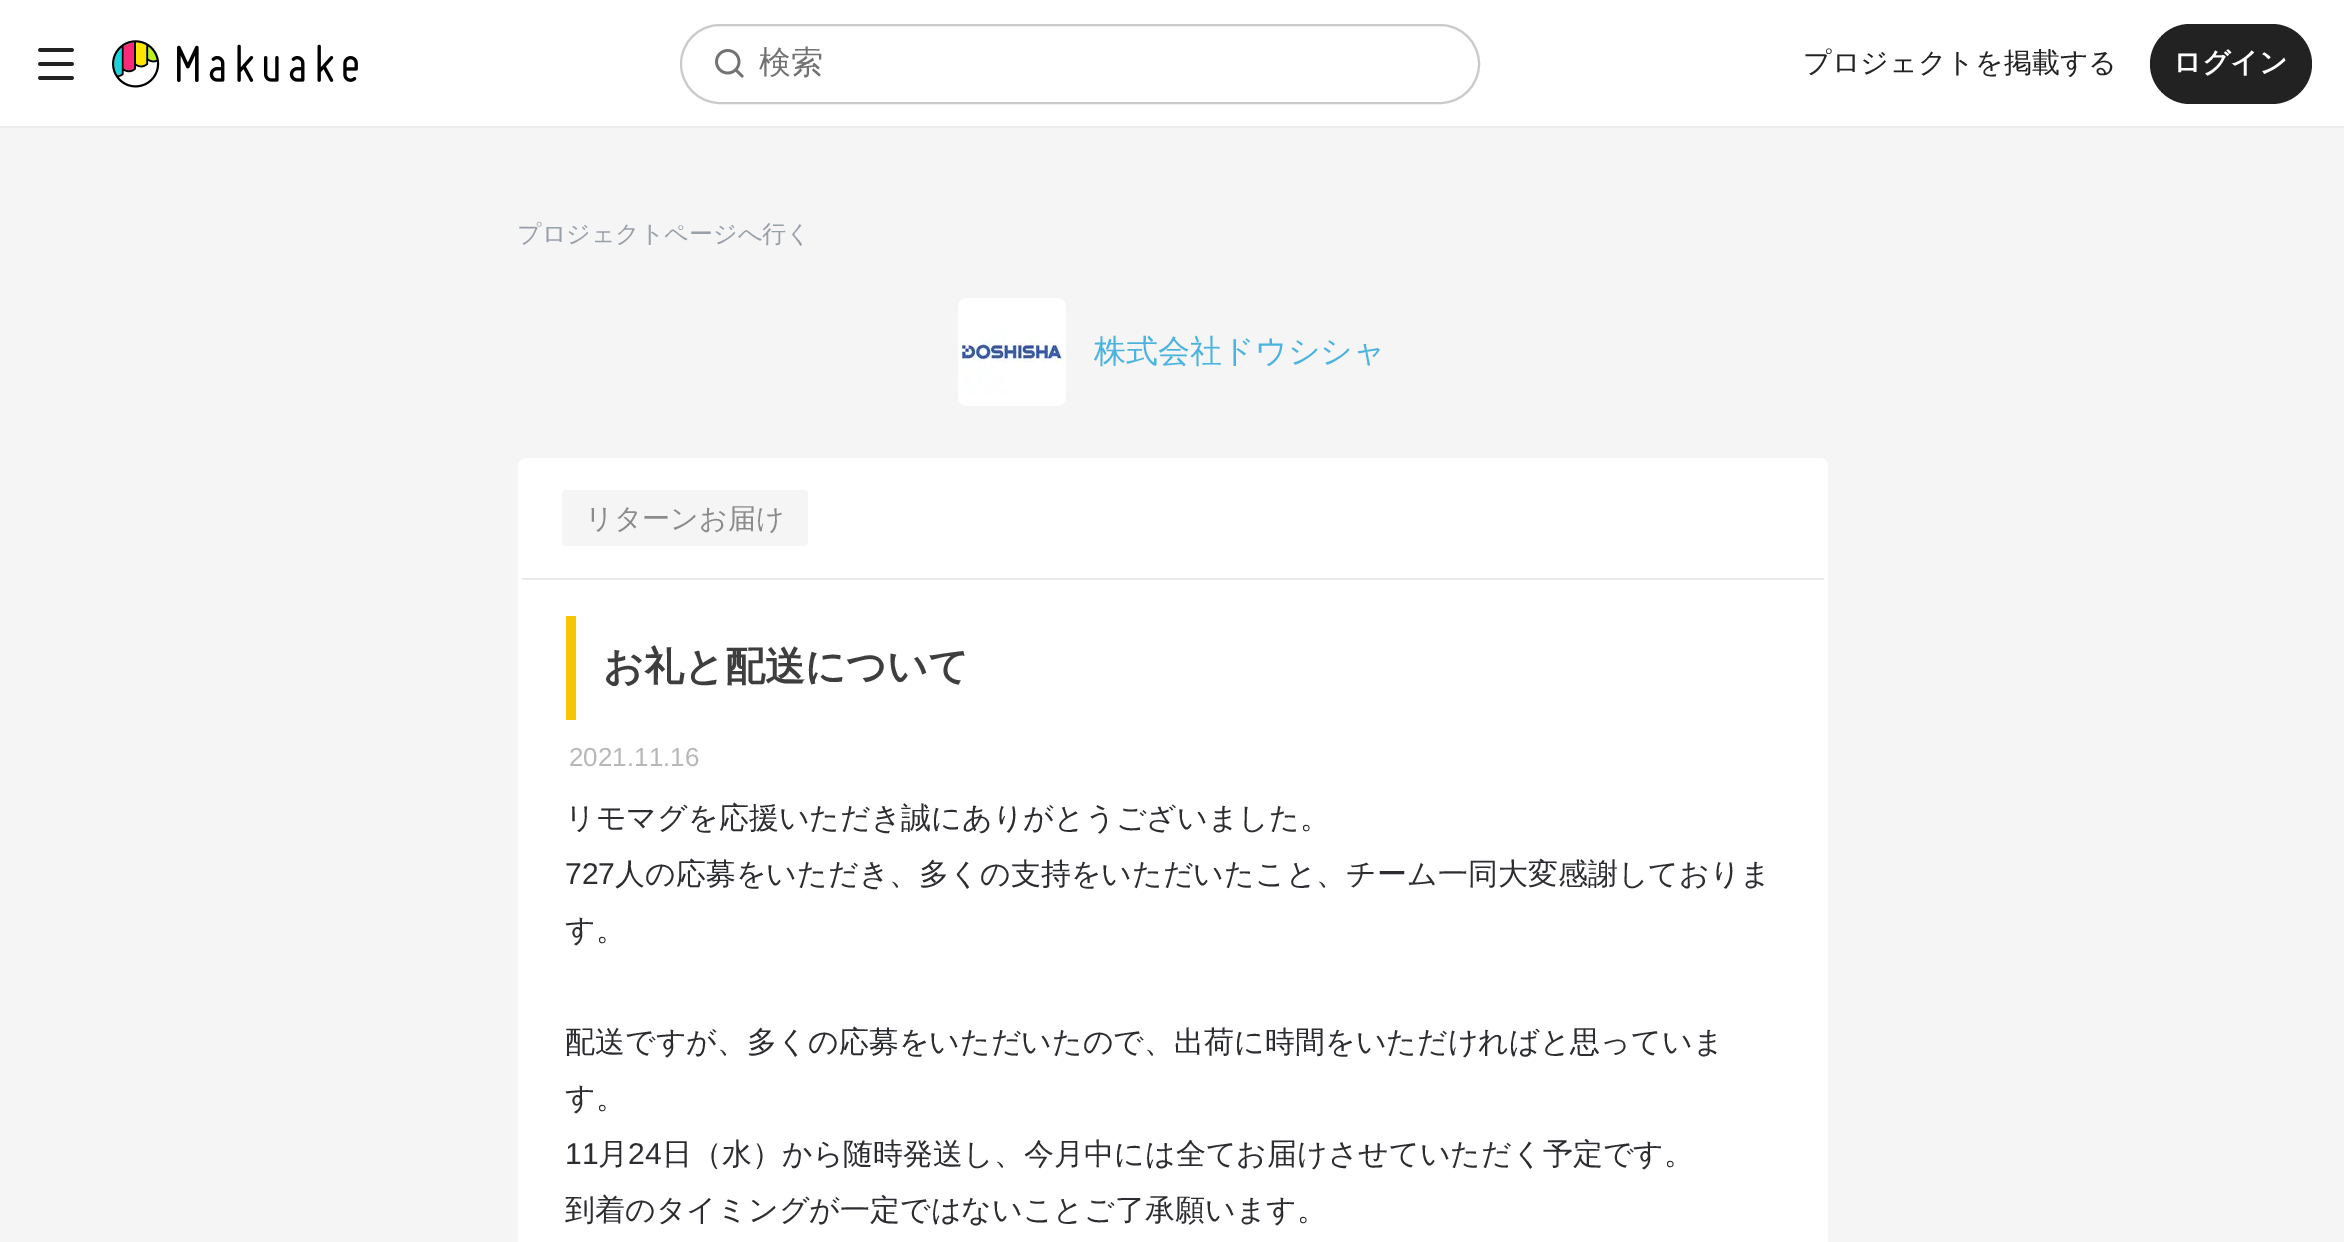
%!PS
<< /PageSize [2344 1242] >> setpagedevice
/roundrect { 5 dict begin { /r /h /w /y /x } { exch def } forall
  x r add y moveto x w add y 2 copy h add r arct x w add y h add x 1 index r arct
  x y h add x y r arct x y 2 copy exch w add exch r arct closepath end } def
/picture { 5 dict begin { /h /w /y /x /name } { exch def } forall
  gsave x y translate w h scale
  w h 8 [w 0 0 h 0 0] name (r) file false 3 colorimage grestore end } def
0 1242 translate 1 -1 scale
4 setmiterlimit
1 setgray
0 0 2344 1242 rectfill
0.929 setgray
0 126 2344 2 rectfill
(img1.rgb) 38 48 36 32 picture
(img2.rgb) 112 40 246 48 picture
0.792 setgray
2 setlinewidth
681 25 798 78 39 roundrect stroke
(img3.rgb) 715 49 29 29 picture
/WenQuanYiZenHei-Medium [32 0 0 -32 0 0] selectfont
0.447 setgray
759 73 moveto (検索) show
/WenQuanYiZenHei-Medium [28 0 0 -28 0 0] selectfont
0.133 setgray
1803 72 moveto (プロジェクトを掲載する) show
2150 24 162 80 40 roundrect fill
/WenQuanYiZenHei-Bold [28 0 0 -28 0 0] selectfont
1 setgray
2173 72 moveto (ログイン) show
0.961 setgray
0 128 2344 1114 rectfill
/WenQuanYiZenHei-Medium [24 0 0 -24 0 0] selectfont
0.596 0.624 0.663 setrgbcolor
517 242 moveto (プロジェクトページへ行く) show
0.925 setgray
958 298 108 108 8 roundrect fill
(img4.rgb) 958 298 108 108 picture
/WenQuanYiZenHei-Medium [32 0 0 -32 0 0] selectfont
0.29 0.702 0.875 setrgbcolor
1094 362 moveto (株式会社ドウシシャ) show
1 setgray
518 458 1310 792 8 roundrect fill
0.918 setgray
522 578 1302 2 rectfill
0.961 setgray
562 490 246 56 4 roundrect fill
/WenQuanYiZenHei-Medium [28 0 0 -28 0 0] selectfont
0.545 setgray
585 528 moveto (リターンお届け) show
0.969 0.776 0 setrgbcolor
566 616 10 104 rectfill
/WenQuanYiZenHei-Bold [40 0 0 -40 0 0] selectfont
0.243 setgray
603 680 moveto (お礼と配送について) show
/LiberationSans-Regular [26 0 0 -26 0 0] selectfont
0.718 setgray
569 766 moveto (2021.11.16) show
/WenQuanYiZenHei-Medium [30 0 0 -30 0 0] selectfont
0.173 0.176 0.188 setrgbcolor
565 828 moveto (リモマグを応援いただき誠にありがとうございました。) show
/LiberationSans-Regular [30 0 0 -30 0 0] selectfont
565 884 moveto (727) show
/WenQuanYiZenHei-Medium [30 0 0 -30 0 0] selectfont
615 884 moveto (人の応募をいただき、多くの支持をいただいたこと、チーム一同大変感謝しておりま) show
565 940 moveto (す。) show
565 1052 moveto (配送ですが、多くの応募をいただいたので、出荷に時間をいただければと思っていま) show
565 1108 moveto (す。) show
/LiberationSans-Regular [30 0 0 -30 0 0] selectfont
565 1164 moveto (11) show
/WenQuanYiZenHei-Medium [30 0 0 -30 0 0] selectfont
598 1164 moveto (月) show
/LiberationSans-Regular [30 0 0 -30 0 0] selectfont
628 1164 moveto (24) show
/WenQuanYiZenHei-Medium [30 0 0 -30 0 0] selectfont
662 1164 moveto (日（水）から随時発送し、今月中には全てお届けさせていただく予定です。) show
565 1220 moveto (到着のタイミングが一定ではないことご了承願います。) show
showpage
